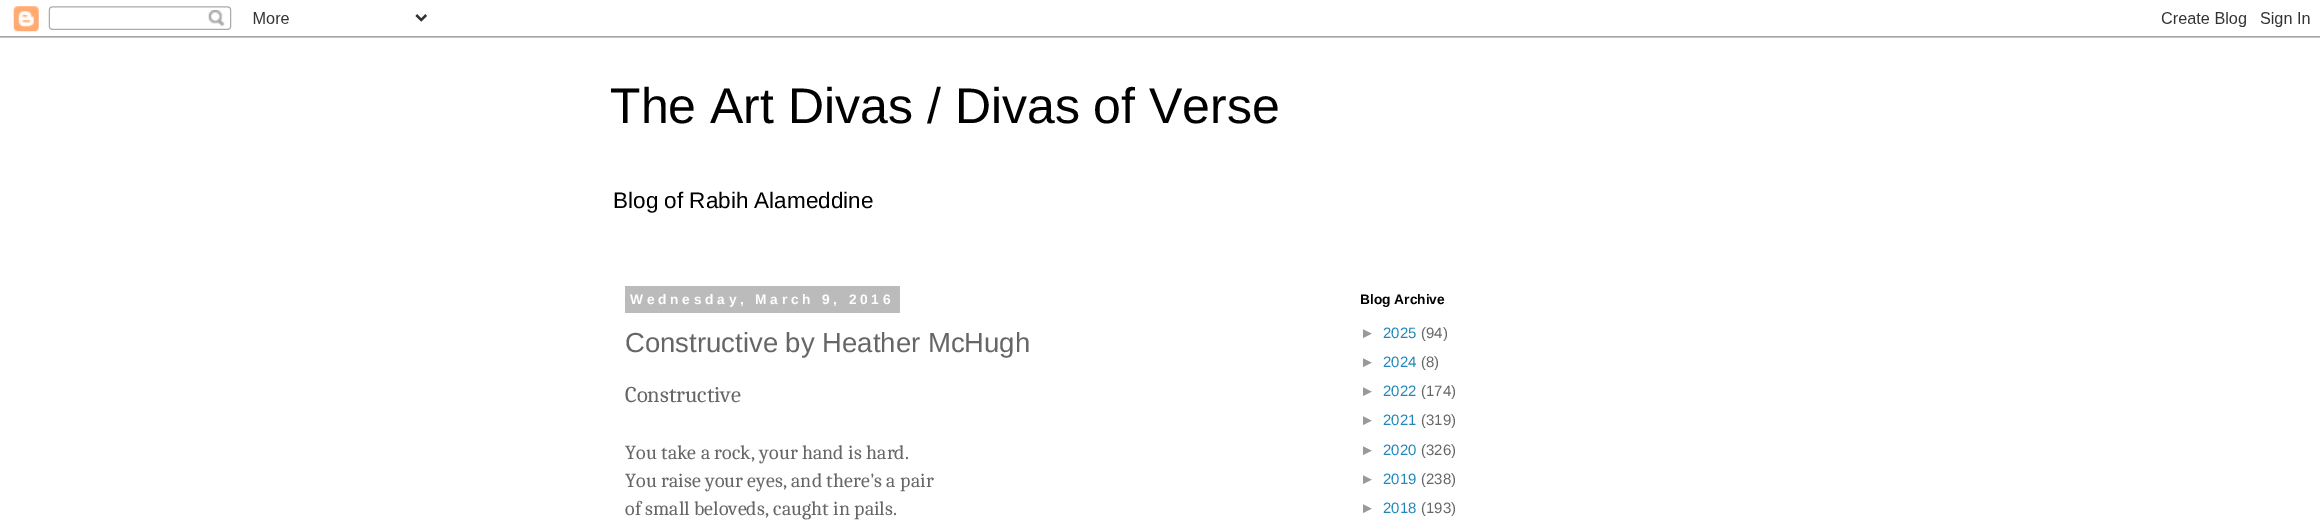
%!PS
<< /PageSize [2320 522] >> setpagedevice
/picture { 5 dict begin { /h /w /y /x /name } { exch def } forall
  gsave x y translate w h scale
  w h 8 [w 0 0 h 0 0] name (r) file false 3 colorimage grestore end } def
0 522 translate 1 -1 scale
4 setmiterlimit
1 setgray
0 0 2320 522 rectfill
(img1.rgb) 0 6 2320 32 picture
/LiberationSans-Regular [50 0 0 -50 0 0] selectfont
0 setgray
610 123 moveto (The Art Divas / Divas of Verse) show
/LiberationSans-Regular [22.5 0 0 -22.5 0 0] selectfont
613 208 moveto (Blog of Rabih Alameddine) show
0.733 setgray
625 286 275 27 rectfill
/LiberationSans-Bold [13.75 0 0 -13.75 0 0] selectfont
1 setgray
630 304 moveto 3.75 0 (Wednesday, March 9, 2016) ashow
/LiberationSans-Regular [27.5 0 0 -27.5 0 0] selectfont
0.4 setgray
625 352 moveto (Constructive by Heather McHugh) show
/Caladea-Regular [22.5 0 0 -22.5 0 0] selectfont
625 402 moveto (Constructive) show
/Caladea-Regular [20 0 0 -20 0 0] selectfont
625 459 moveto (You take a rock, your hand is hard.) show
625 487 moveto (You raise your eyes, and there's a pair) show
625 515 moveto (of small beloveds, caught in pails.) show
/LiberationSans-Bold [13.75 0 0 -13.75 0 0] selectfont
0 setgray
1360 304 moveto (Blog Archive) show
/LiberationSans-Regular [15 0 0 -15 0 0] selectfont
0.6 setgray
1360 338 moveto (►) show
0.133 0.533 0.733 setrgbcolor
1383 338 moveto (2025) show
0.4 setgray
1421 338 moveto (\(94\)) show
0.6 setgray
1360 367 moveto (►) show
0.133 0.533 0.733 setrgbcolor
1383 367 moveto (2024) show
0.4 setgray
1421 367 moveto (\(8\)) show
0.6 setgray
1360 396 moveto (►) show
0.133 0.533 0.733 setrgbcolor
1383 396 moveto (2022) show
0.4 setgray
1421 396 moveto (\(174\)) show
0.6 setgray
1360 425 moveto (►) show
0.133 0.533 0.733 setrgbcolor
1383 425 moveto (2021) show
0.4 setgray
1421 425 moveto (\(319\)) show
0.6 setgray
1360 455 moveto (►) show
0.133 0.533 0.733 setrgbcolor
1383 455 moveto (2020) show
0.4 setgray
1421 455 moveto (\(326\)) show
0.6 setgray
1360 484 moveto (►) show
0.133 0.533 0.733 setrgbcolor
1383 484 moveto (2019) show
0.4 setgray
1421 484 moveto (\(238\)) show
0.6 setgray
1360 513 moveto (►) show
0.133 0.533 0.733 setrgbcolor
1383 513 moveto (2018) show
0.4 setgray
1421 513 moveto (\(193\)) show
showpage
